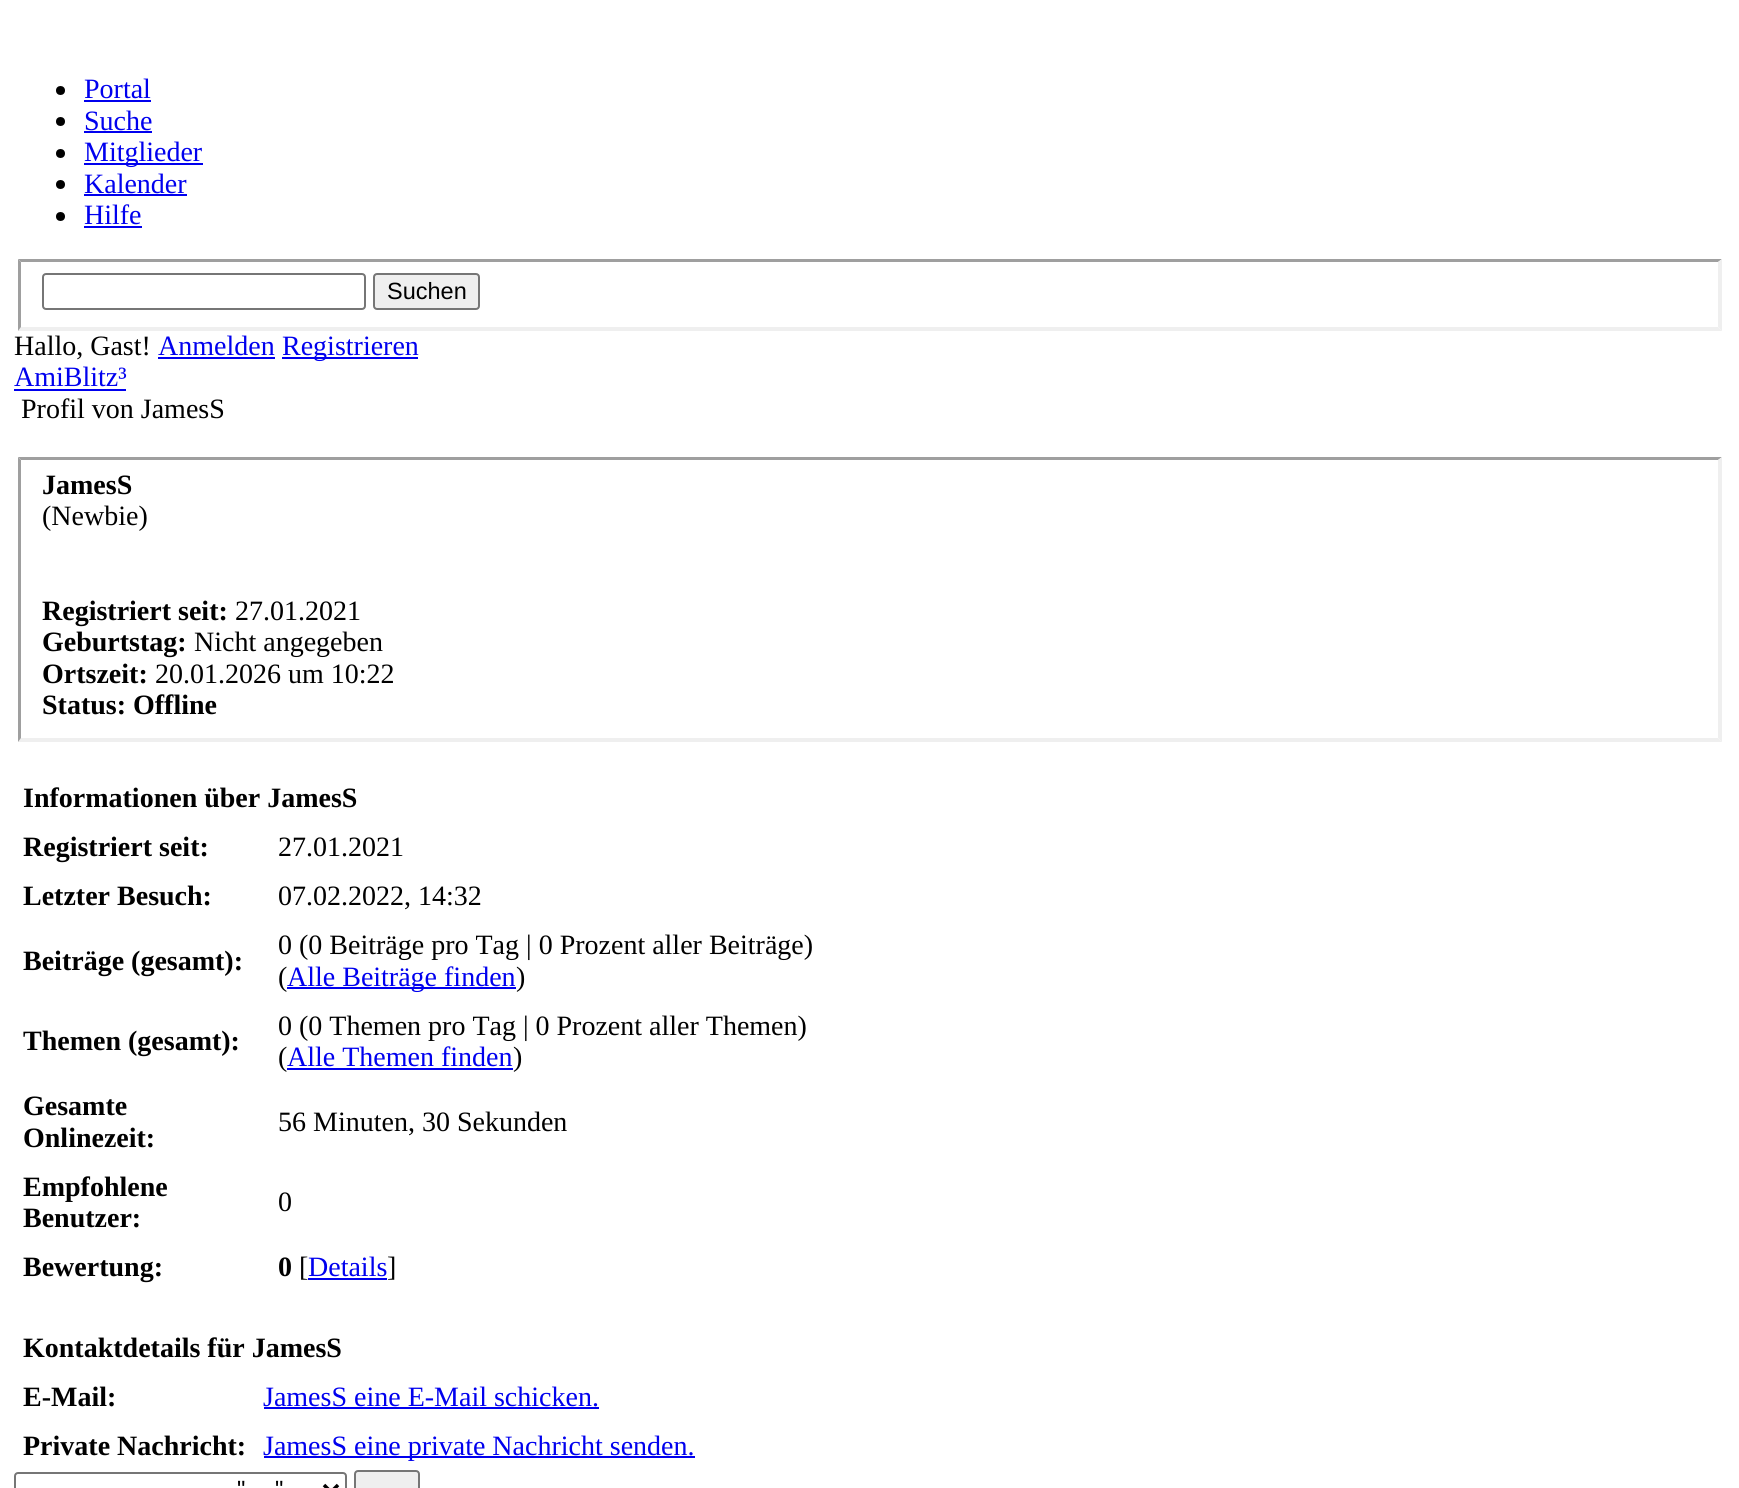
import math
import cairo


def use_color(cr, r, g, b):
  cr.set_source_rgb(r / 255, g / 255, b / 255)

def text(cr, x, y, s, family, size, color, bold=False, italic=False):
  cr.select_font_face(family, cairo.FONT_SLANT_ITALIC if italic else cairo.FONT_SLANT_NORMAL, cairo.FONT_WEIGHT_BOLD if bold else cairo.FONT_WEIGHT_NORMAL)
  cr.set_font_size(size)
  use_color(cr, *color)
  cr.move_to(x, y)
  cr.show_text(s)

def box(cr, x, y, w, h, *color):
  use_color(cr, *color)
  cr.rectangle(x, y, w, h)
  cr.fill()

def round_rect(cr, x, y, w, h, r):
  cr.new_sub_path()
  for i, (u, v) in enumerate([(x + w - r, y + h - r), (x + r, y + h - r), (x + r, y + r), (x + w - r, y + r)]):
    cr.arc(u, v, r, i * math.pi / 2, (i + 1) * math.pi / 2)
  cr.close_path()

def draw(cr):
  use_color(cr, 255, 255, 255)
  cr.paint()
  use_color(cr, 0, 0, 0)
  cr.arc(60.5, 90.5, 4.5, 0, 2 * math.pi)
  cr.fill()
  box(cr, 84, 100, 67, 2, 0, 0, 238)
  use_color(cr, 0, 0, 0)
  cr.arc(60.5, 121.5, 4.5, 0, 2 * math.pi)
  cr.fill()
  box(cr, 84, 131, 68, 2, 0, 0, 238)
  use_color(cr, 0, 0, 0)
  cr.arc(60.5, 153.5, 4.5, 0, 2 * math.pi)
  cr.fill()
  box(cr, 84, 163, 119, 2, 0, 0, 238)
  use_color(cr, 0, 0, 0)
  cr.arc(60.5, 184.5, 4.5, 0, 2 * math.pi)
  cr.fill()
  box(cr, 84, 194, 103, 2, 0, 0, 238)
  use_color(cr, 0, 0, 0)
  cr.arc(60.5, 216.5, 4.5, 0, 2 * math.pi)
  cr.fill()
  box(cr, 84, 226, 58, 2, 0, 0, 238)
  use_color(cr, 159, 159, 159)
  cr.new_path()
  cr.move_to(18, 259)
  cr.line_to(1722, 259)
  cr.line_to(1718, 262)
  cr.line_to(21, 262)
  cr.close_path()
  cr.fill()
  use_color(cr, 239, 239, 239)
  cr.new_path()
  cr.move_to(1722, 259)
  cr.line_to(1722, 331)
  cr.line_to(1718, 327)
  cr.line_to(1718, 262)
  cr.close_path()
  cr.fill()
  cr.new_path()
  cr.move_to(1722, 331)
  cr.line_to(18, 331)
  cr.line_to(21, 327)
  cr.line_to(1718, 327)
  cr.close_path()
  cr.fill()
  use_color(cr, 159, 159, 159)
  cr.new_path()
  cr.move_to(18, 331)
  cr.line_to(18, 259)
  cr.line_to(21, 262)
  cr.line_to(21, 327)
  cr.close_path()
  cr.fill()
  round_rect(cr, 43, 274, 322, 35, 3)
  use_color(cr, 118, 118, 118)
  cr.stroke()
  use_color(cr, 239, 239, 239)
  round_rect(cr, 374, 274, 105, 35, 3)
  cr.fill_preserve()
  use_color(cr, 118, 118, 118)
  cr.stroke()
  box(cr, 158, 357, 117, 2, 0, 0, 238)
  box(cr, 282, 357, 136, 2, 0, 0, 238)
  box(cr, 14, 389, 112, 2, 0, 0, 238)
  use_color(cr, 159, 159, 159)
  cr.new_path()
  cr.move_to(18, 457)
  cr.line_to(1722, 457)
  cr.line_to(1718, 460)
  cr.line_to(21, 460)
  cr.close_path()
  cr.fill()
  use_color(cr, 239, 239, 239)
  cr.new_path()
  cr.move_to(1722, 457)
  cr.line_to(1722, 742)
  cr.line_to(1718, 738)
  cr.line_to(1718, 460)
  cr.close_path()
  cr.fill()
  cr.new_path()
  cr.move_to(1722, 742)
  cr.line_to(18, 742)
  cr.line_to(21, 738)
  cr.line_to(1718, 738)
  cr.close_path()
  cr.fill()
  use_color(cr, 159, 159, 159)
  cr.new_path()
  cr.move_to(18, 742)
  cr.line_to(18, 457)
  cr.line_to(21, 460)
  cr.line_to(21, 738)
  cr.close_path()
  cr.fill()
  box(cr, 287, 987, 229, 2, 0, 0, 238)
  box(cr, 287, 1068, 226, 2, 0, 0, 238)
  box(cr, 308, 1278, 79, 2, 0, 0, 238)
  box(cr, 264, 1407, 335, 2, 0, 0, 238)
  box(cr, 264, 1456, 431, 2, 0, 0, 238)
  round_rect(cr, 15, 1473, 331, 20, 3)
  use_color(cr, 118, 118, 118)
  cr.stroke()
  cr.new_path()
  cr.move_to(324, 1485)
  cr.line_to(331, 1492)
  cr.line_to(338, 1485)
  use_color(cr, 0, 0, 0)
  cr.set_line_width(3.5)
  cr.stroke()
  use_color(cr, 239, 239, 239)
  round_rect(cr, 355, 1471, 64, 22, 3)
  cr.fill_preserve()
  use_color(cr, 118, 118, 118)
  cr.set_line_width(2)
  cr.stroke()
  text(cr, 84, 98, "Portal", "Liberation Serif", 28, (0, 0, 238))
  text(cr, 84, 130, "Suche", "Liberation Serif", 28, (0, 0, 238))
  text(cr, 84, 161, "Mitglieder", "Liberation Serif", 28, (0, 0, 238))
  text(cr, 84, 193, "Kalender", "Liberation Serif", 28, (0, 0, 238))
  text(cr, 84, 224, "Hilfe", "Liberation Serif", 28, (0, 0, 238))
  text(cr, 387, 299, "Suchen", "Liberation Sans", 23.5, (0, 0, 0))
  text(cr, 14, 355, "Hallo, Gast!", "Liberation Serif", 28, (0, 0, 0))
  text(cr, 158, 355, "Anmelden", "Liberation Serif", 28, (0, 0, 238))
  text(cr, 282, 355, "Registrieren", "Liberation Serif", 28, (0, 0, 238))
  text(cr, 14, 386, "AmiBlitz³", "Liberation Serif", 28, (0, 0, 238))
  text(cr, 21, 418, "Profil von JamesS", "Liberation Serif", 28, (0, 0, 0))
  text(cr, 42, 494, "JamesS", "Liberation Serif", 28, (0, 0, 0), bold=True)
  text(cr, 42, 525, "(Newbie)", "Liberation Serif", 28, (0, 0, 0))
  text(cr, 42, 620, "Registriert seit:", "Liberation Serif", 28, (0, 0, 0), bold=True)
  text(cr, 235, 620, "27.01.2021", "Liberation Serif", 28, (0, 0, 0))
  text(cr, 42, 651, "Geburtstag:", "Liberation Serif", 28, (0, 0, 0), bold=True)
  text(cr, 194, 651, "Nicht angegeben", "Liberation Serif", 28, (0, 0, 0))
  text(cr, 42, 683, "Ortszeit:", "Liberation Serif", 28, (0, 0, 0), bold=True)
  text(cr, 155, 683, "20.01.2026 um 10:22", "Liberation Serif", 28, (0, 0, 0))
  text(cr, 42, 714, "Status: Offline", "Liberation Serif", 28, (0, 0, 0), bold=True)
  text(cr, 23, 807, "Informationen über JamesS", "Liberation Serif", 28, (0, 0, 0), bold=True)
  text(cr, 23, 856, "Registriert seit:", "Liberation Serif", 28, (0, 0, 0), bold=True)
  text(cr, 278, 856, "27.01.2021", "Liberation Serif", 28, (0, 0, 0))
  text(cr, 23, 905, "Letzter Besuch:", "Liberation Serif", 28, (0, 0, 0), bold=True)
  text(cr, 278, 905, "07.02.2022, 14:32", "Liberation Serif", 28, (0, 0, 0))
  text(cr, 23, 970, "Beiträge (gesamt):", "Liberation Serif", 28, (0, 0, 0), bold=True)
  text(cr, 278, 954, "0 (0 Beiträge pro Tag | 0 Prozent aller Beiträge)", "Liberation Serif", 28, (0, 0, 0))
  text(cr, 278, 986, "(", "Liberation Serif", 28, (0, 0, 0))
  text(cr, 287, 986, "Alle Beiträge finden", "Liberation Serif", 28, (0, 0, 238))
  text(cr, 516, 986, ")", "Liberation Serif", 28, (0, 0, 0))
  text(cr, 23, 1050, "Themen (gesamt):", "Liberation Serif", 28, (0, 0, 0), bold=True)
  text(cr, 278, 1035, "0 (0 Themen pro Tag | 0 Prozent aller Themen)", "Liberation Serif", 28, (0, 0, 0))
  text(cr, 278, 1066, "(", "Liberation Serif", 28, (0, 0, 0))
  text(cr, 287, 1066, "Alle Themen finden", "Liberation Serif", 28, (0, 0, 238))
  text(cr, 513, 1066, ")", "Liberation Serif", 28, (0, 0, 0))
  text(cr, 23, 1115, "Gesamte", "Liberation Serif", 28, (0, 0, 0), bold=True)
  text(cr, 23, 1147, "Onlinezeit:", "Liberation Serif", 28, (0, 0, 0), bold=True)
  text(cr, 278, 1131, "56 Minuten, 30 Sekunden", "Liberation Serif", 28, (0, 0, 0))
  text(cr, 23, 1196, "Empfohlene", "Liberation Serif", 28, (0, 0, 0), bold=True)
  text(cr, 23, 1227, "Benutzer:", "Liberation Serif", 28, (0, 0, 0), bold=True)
  text(cr, 278, 1211, "0", "Liberation Serif", 28, (0, 0, 0))
  text(cr, 23, 1276, "Bewertung:", "Liberation Serif", 28, (0, 0, 0), bold=True)
  text(cr, 278, 1276, "0", "Liberation Serif", 28, (0, 0, 0), bold=True)
  text(cr, 299, 1276, "[", "Liberation Serif", 28, (0, 0, 0))
  text(cr, 308, 1276, "Details", "Liberation Serif", 28, (0, 0, 238))
  text(cr, 387, 1276, "]", "Liberation Serif", 28, (0, 0, 0))
  text(cr, 23, 1357, "Kontaktdetails für JamesS", "Liberation Serif", 28, (0, 0, 0), bold=True)
  text(cr, 23, 1406, "E-Mail:", "Liberation Serif", 28, (0, 0, 0), bold=True)
  text(cr, 263, 1406, "JamesS eine E-Mail schicken.", "Liberation Serif", 28, (0, 0, 238))
  text(cr, 23, 1455, "Private Nachricht:", "Liberation Serif", 28, (0, 0, 0), bold=True)
  text(cr, 263, 1455, "JamesS eine private Nachricht senden.", "Liberation Serif", 28, (0, 0, 238))
  text(cr, 237, 1497, "\"", "Liberation Sans", 23.5, (0, 0, 0))
  text(cr, 275, 1497, "\"", "Liberation Sans", 23.5, (0, 0, 0))


surface = cairo.ImageSurface(cairo.FORMAT_RGB24, 1739, 1488)
cr = cairo.Context(surface)
options = cairo.FontOptions()
options.set_hint_metrics(cairo.HINT_METRICS_OFF)
options.set_hint_style(cairo.HINT_STYLE_NONE)
cr.set_font_options(options)
cr.set_miter_limit(4)
draw(cr)
surface.write_to_png("out.png")
